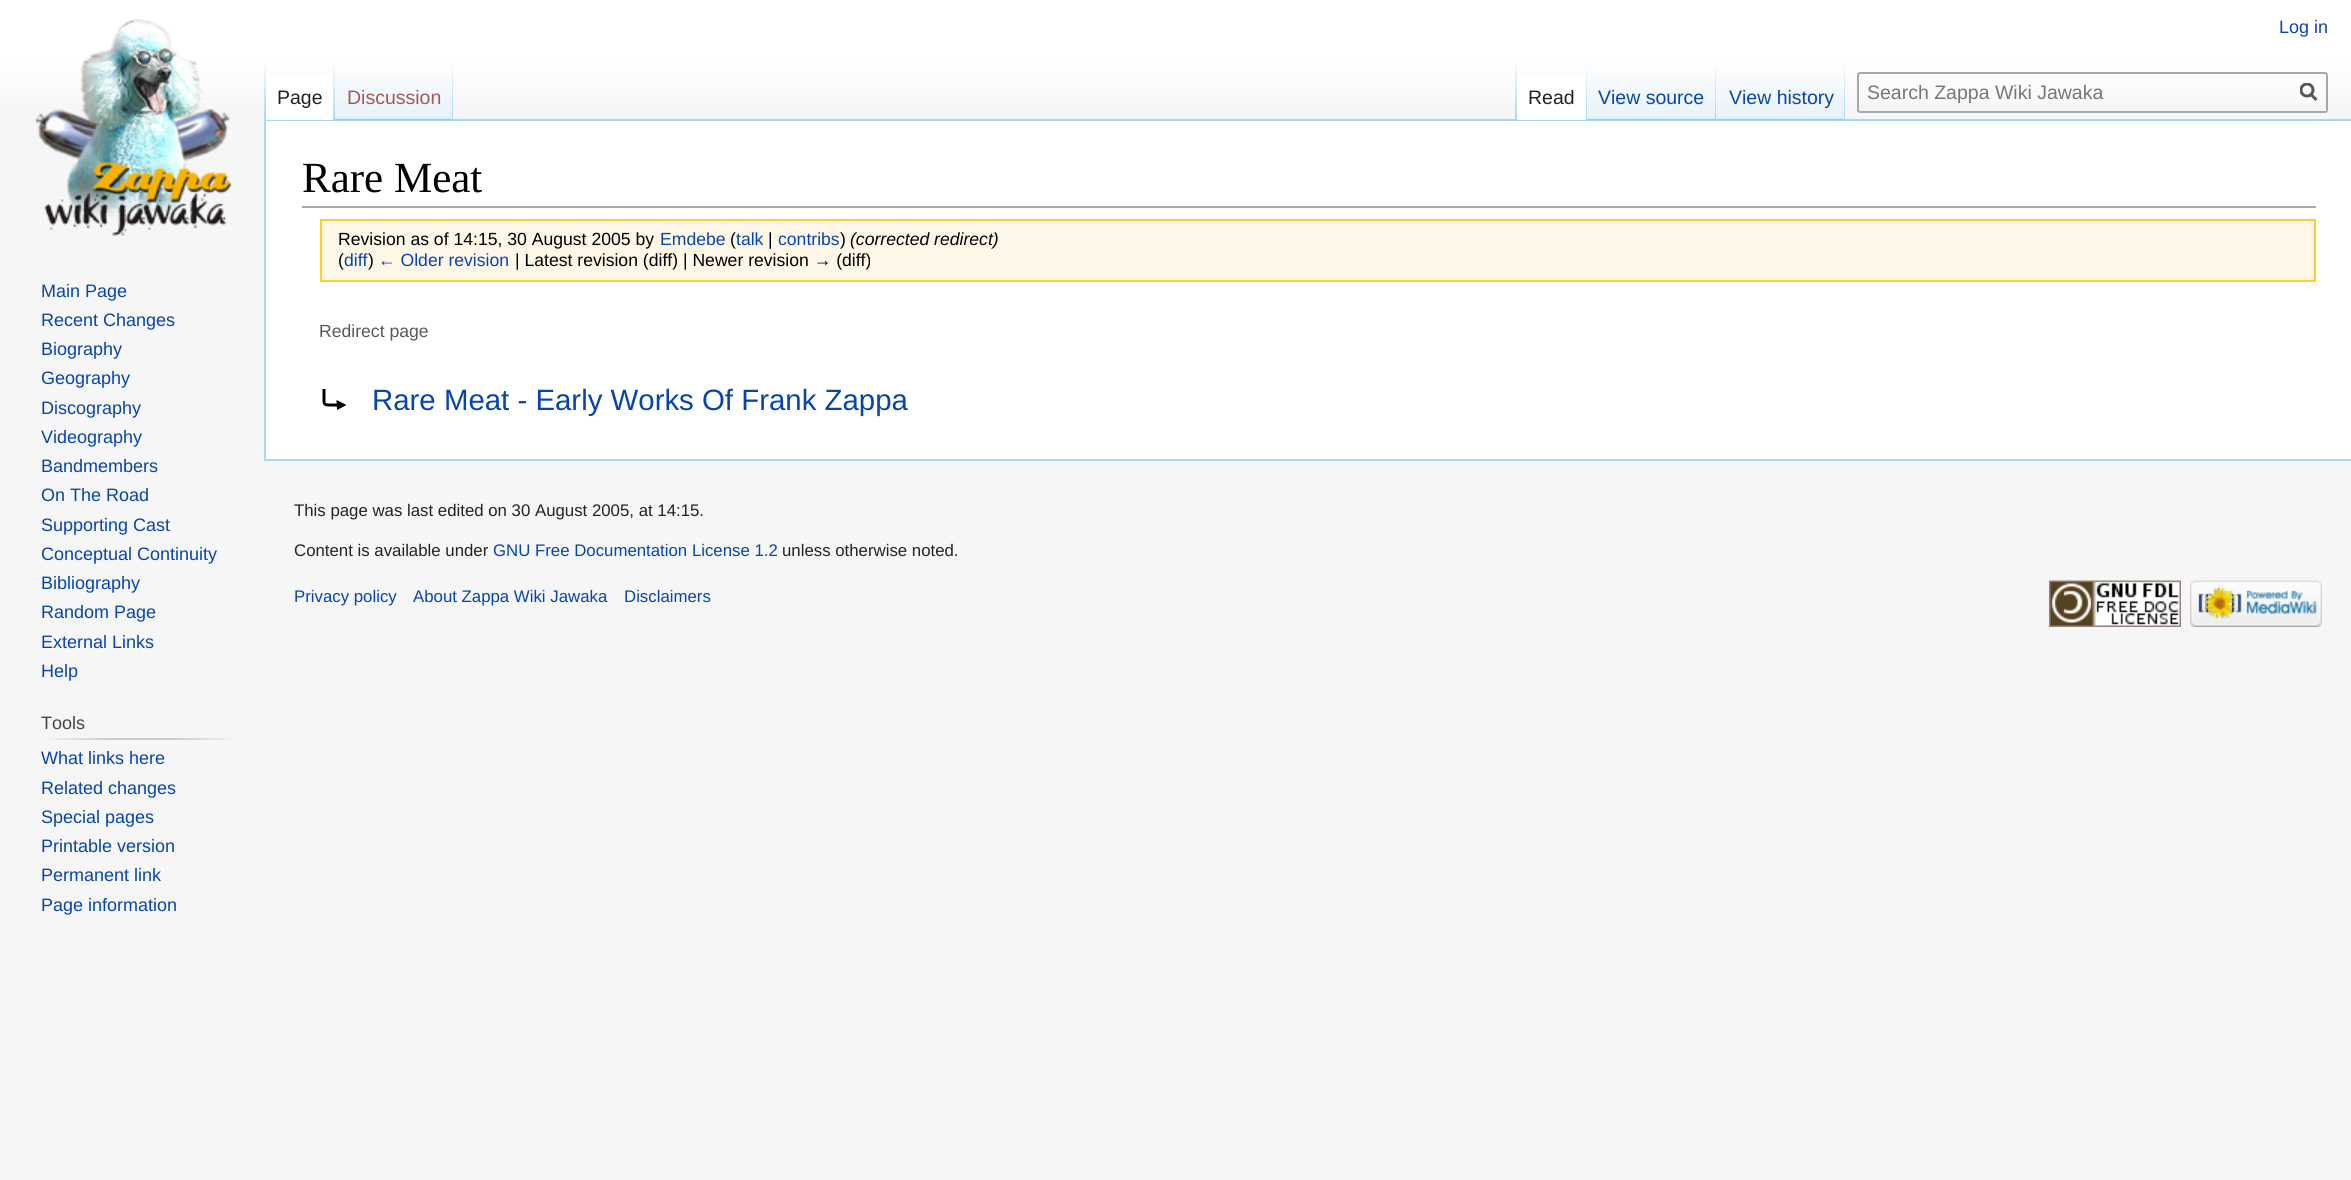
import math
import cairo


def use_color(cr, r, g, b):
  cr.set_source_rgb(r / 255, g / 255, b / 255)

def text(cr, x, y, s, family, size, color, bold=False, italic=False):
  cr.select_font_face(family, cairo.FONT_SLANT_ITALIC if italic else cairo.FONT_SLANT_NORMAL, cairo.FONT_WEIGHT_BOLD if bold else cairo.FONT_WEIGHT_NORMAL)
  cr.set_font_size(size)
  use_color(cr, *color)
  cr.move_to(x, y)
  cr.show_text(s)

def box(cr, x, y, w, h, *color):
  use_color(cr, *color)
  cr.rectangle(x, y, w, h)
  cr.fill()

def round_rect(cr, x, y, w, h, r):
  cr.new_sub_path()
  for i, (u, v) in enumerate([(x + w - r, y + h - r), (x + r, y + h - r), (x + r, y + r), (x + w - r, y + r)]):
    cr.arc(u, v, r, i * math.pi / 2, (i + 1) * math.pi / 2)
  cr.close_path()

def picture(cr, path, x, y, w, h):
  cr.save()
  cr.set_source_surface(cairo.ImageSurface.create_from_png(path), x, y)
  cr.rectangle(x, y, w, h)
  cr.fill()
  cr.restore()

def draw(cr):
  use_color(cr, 246, 246, 246)
  cr.paint()
  gradient = cairo.LinearGradient(1176, 0, 1176, 120)
  gradient.add_color_stop_rgba(0.5, 1, 1, 1, 1)
  gradient.add_color_stop_rgba(1, 0.965, 0.965, 0.965, 1)
  cr.set_source(gradient)
  cr.rectangle(0, 0, 2351, 103)
  cr.fill()
  box(cr, 264, 119, 2087, 2, 167, 215, 249)
  box(cr, 264, 459, 2087, 2, 167, 215, 249)
  box(cr, 264, 119, 2, 342, 167, 215, 249)
  gradient = cairo.LinearGradient(265, 60, 265, 120)
  gradient.add_color_stop_rgba(0, 0.655, 0.843, 0.976, 0)
  gradient.add_color_stop_rgba(1, 0.655, 0.843, 0.976, 1)
  cr.set_source(gradient)
  cr.rectangle(264, 60, 2, 60)
  cr.fill()
  box(cr, 266, 77, 67, 43, 255, 255, 255)
  gradient = cairo.LinearGradient(334, 60, 334, 120)
  gradient.add_color_stop_rgba(0, 1, 1, 1, 1)
  gradient.add_color_stop_rgba(1, 0.655, 0.843, 0.976, 1)
  cr.set_source(gradient)
  cr.rectangle(333, 60, 2, 60)
  cr.fill()
  gradient = cairo.LinearGradient(394, 120, 394, 60)
  gradient.add_color_stop_rgba(0, 0.467, 0.757, 0.965, 1)
  gradient.add_color_stop_rgba(0.03, 0.91, 0.949, 0.973, 1)
  gradient.add_color_stop_rgba(1, 1, 1, 1, 1)
  cr.set_source(gradient)
  cr.rectangle(335, 69, 118, 51)
  cr.fill()
  gradient = cairo.LinearGradient(452, 60, 452, 120)
  gradient.add_color_stop_rgba(0, 0.655, 0.843, 0.976, 0)
  gradient.add_color_stop_rgba(1, 0.655, 0.843, 0.976, 1)
  cr.set_source(gradient)
  cr.rectangle(452, 60, 1, 60)
  cr.fill()
  gradient = cairo.LinearGradient(1516, 60, 1516, 120)
  gradient.add_color_stop_rgba(0, 0.655, 0.843, 0.976, 0)
  gradient.add_color_stop_rgba(1, 0.655, 0.843, 0.976, 1)
  cr.set_source(gradient)
  cr.rectangle(1515, 60, 2, 60)
  cr.fill()
  box(cr, 1517, 77, 69, 43, 255, 255, 255)
  gradient = cairo.LinearGradient(1586, 60, 1586, 120)
  gradient.add_color_stop_rgba(0, 1, 1, 1, 1)
  gradient.add_color_stop_rgba(1, 0.655, 0.843, 0.976, 1)
  cr.set_source(gradient)
  cr.rectangle(1586, 60, 1, 60)
  cr.fill()
  gradient = cairo.LinearGradient(1652, 120, 1652, 60)
  gradient.add_color_stop_rgba(0, 0.467, 0.757, 0.965, 1)
  gradient.add_color_stop_rgba(0.03, 0.91, 0.949, 0.973, 1)
  gradient.add_color_stop_rgba(1, 1, 1, 1, 1)
  cr.set_source(gradient)
  cr.rectangle(1587, 69, 129, 51)
  cr.fill()
  gradient = cairo.LinearGradient(1715, 60, 1715, 120)
  gradient.add_color_stop_rgba(0, 0.655, 0.843, 0.976, 0)
  gradient.add_color_stop_rgba(1, 0.655, 0.843, 0.976, 1)
  cr.set_source(gradient)
  cr.rectangle(1715, 60, 1, 60)
  cr.fill()
  gradient = cairo.LinearGradient(1781, 120, 1781, 60)
  gradient.add_color_stop_rgba(0, 0.467, 0.757, 0.965, 1)
  gradient.add_color_stop_rgba(0.03, 0.91, 0.949, 0.973, 1)
  gradient.add_color_stop_rgba(1, 1, 1, 1, 1)
  cr.set_source(gradient)
  cr.rectangle(1716, 69, 129, 51)
  cr.fill()
  gradient = cairo.LinearGradient(1844, 60, 1844, 120)
  gradient.add_color_stop_rgba(0, 0.655, 0.843, 0.976, 0)
  gradient.add_color_stop_rgba(1, 0.655, 0.843, 0.976, 1)
  cr.set_source(gradient)
  cr.rectangle(1844, 60, 1, 60)
  cr.fill()
  round_rect(cr, 1858, 73, 469, 39, 2)
  use_color(cr, 162, 169, 177)
  cr.stroke()
  cr.new_path()
  cr.move_to(2316.5, 100)
  cr.line_to(2310.5, 94)
  use_color(cr, 84, 89, 93)
  cr.set_line_width(3)
  cr.stroke()
  cr.save()
  cr.rectangle(2300, 83, 18, 19)
  cr.clip()
  cr.arc(2307, 90, 6, 0, 2 * math.pi)
  cr.stroke()
  cr.restore()
  picture(cr, "img_01.png", 35, 19, 197, 217)
  gradient = cairo.LinearGradient(41, 739, 237, 739)
  gradient.add_color_stop_rgba(0, 0.965, 0.965, 0.965, 1)
  gradient.add_color_stop_rgba(0.35, 0.784, 0.8, 0.82, 1)
  gradient.add_color_stop_rgba(0.7, 0.784, 0.8, 0.82, 1)
  gradient.add_color_stop_rgba(1, 0.965, 0.965, 0.965, 1)
  cr.set_source(gradient)
  cr.rectangle(41, 738, 196, 2)
  cr.fill()
  box(cr, 266, 121, 2085, 338, 255, 255, 255)
  box(cr, 302, 206, 2014, 2, 162, 169, 177)
  use_color(cr, 254, 246, 231)
  cr.rectangle(321, 220, 1994, 61)
  cr.fill_preserve()
  use_color(cr, 255, 204, 51)
  cr.set_line_width(2)
  cr.stroke()
  cr.new_path()
  cr.move_to(324, 389)
  cr.line_to(324, 398)
  cr.curve_to(324, 404, 323.5, 405, 330, 405)
  cr.line_to(340.5, 405)
  use_color(cr, 0, 0, 0)
  cr.set_line_width(3)
  cr.stroke()
  cr.new_path()
  cr.move_to(336.5, 400)
  cr.line_to(337, 410)
  cr.line_to(346.5, 405)
  cr.close_path()
  cr.fill()
  picture(cr, "img_02.png", 2049, 580, 132, 47)
  picture(cr, "img_03.png", 2190, 580, 132, 47)
  text(cr, 2279, 33, "Log in", "Liberation Sans", 18, (6, 69, 173))
  text(cr, 277, 104, "Page", "Liberation Sans", 19.5, (34, 34, 34))
  text(cr, 347, 104, "Discussion", "Liberation Sans", 19.5, (165, 88, 88))
  text(cr, 1528, 104, "Read", "Liberation Sans", 19.5, (34, 34, 34))
  text(cr, 1598, 104, "View source", "Liberation Sans", 19.5, (6, 69, 173))
  text(cr, 1729, 104, "View history", "Liberation Sans", 19.5, (6, 69, 173))
  text(cr, 1867, 99, "Search Zappa Wiki Jawaka", "Liberation Sans", 19.5, (114, 119, 125))
  text(cr, 41, 297, "Main Page", "Liberation Sans", 18, (6, 69, 173))
  text(cr, 41, 326, "Recent Changes", "Liberation Sans", 18, (6, 69, 173))
  text(cr, 41, 355, "Biography", "Liberation Sans", 18, (6, 69, 173))
  text(cr, 41, 384, "Geography", "Liberation Sans", 18, (6, 69, 173))
  text(cr, 41, 414, "Discography", "Liberation Sans", 18, (6, 69, 173))
  text(cr, 41, 443, "Videography", "Liberation Sans", 18, (6, 69, 173))
  text(cr, 41, 472, "Bandmembers", "Liberation Sans", 18, (6, 69, 173))
  text(cr, 41, 501, "On The Road", "Liberation Sans", 18, (6, 69, 173))
  text(cr, 41, 531, "Supporting Cast", "Liberation Sans", 18, (6, 69, 173))
  text(cr, 41, 560, "Conceptual Continuity", "Liberation Sans", 18, (6, 69, 173))
  text(cr, 41, 589, "Bibliography", "Liberation Sans", 18, (6, 69, 173))
  text(cr, 41, 618, "Random Page", "Liberation Sans", 18, (6, 69, 173))
  text(cr, 41, 648, "External Links", "Liberation Sans", 18, (6, 69, 173))
  text(cr, 41, 677, "Help", "Liberation Sans", 18, (6, 69, 173))
  text(cr, 41, 729, "Tools", "Liberation Sans", 18, (68, 68, 68))
  text(cr, 41, 764, "What links here", "Liberation Sans", 18, (6, 69, 173))
  text(cr, 41, 794, "Related changes", "Liberation Sans", 18, (6, 69, 173))
  text(cr, 41, 823, "Special pages", "Liberation Sans", 18, (6, 69, 173))
  text(cr, 41, 852, "Printable version", "Liberation Sans", 18, (6, 69, 173))
  text(cr, 41, 881, "Permanent link", "Liberation Sans", 18, (6, 69, 173))
  text(cr, 41, 911, "Page information", "Liberation Sans", 18, (6, 69, 173))
  text(cr, 302, 192, "Rare Meat", "Liberation Serif", 43, (0, 0, 0))
  text(cr, 338, 245, "Revision as of 14:15, 30 August 2005 by", "Liberation Sans", 17.6, (0, 0, 0))
  text(cr, 660, 245, "Emdebe", "Liberation Sans", 17.6, (6, 69, 173))
  text(cr, 730, 245, "(", "Liberation Sans", 17.6, (0, 0, 0))
  text(cr, 736, 245, "talk", "Liberation Sans", 17.6, (6, 69, 173))
  text(cr, 768, 245, "|", "Liberation Sans", 17.6, (0, 0, 0))
  text(cr, 778, 245, "contribs", "Liberation Sans", 17.6, (6, 69, 173))
  text(cr, 840, 245, ")", "Liberation Sans", 17.6, (0, 0, 0))
  text(cr, 850, 245, "(corrected redirect)", "Liberation Sans", 17.6, (0, 0, 0), italic=True)
  text(cr, 338, 266, "(", "Liberation Sans", 17.6, (0, 0, 0))
  text(cr, 344, 266, "diff", "Liberation Sans", 17.6, (6, 69, 173))
  text(cr, 368, 266, ")", "Liberation Sans", 17.6, (0, 0, 0))
  text(cr, 378, 266, "← Older revision", "Liberation Sans", 17.6, (6, 69, 173))
  text(cr, 515, 266, "| Latest revision (diff) | Newer revision → (diff)", "Liberation Sans", 17.6, (0, 0, 0))
  text(cr, 319, 337, "Redirect page", "Liberation Sans", 17.6, (84, 89, 93))
  text(cr, 372, 410, "Rare Meat - Early Works Of Frank Zappa", "Liberation Sans", 29.4, (6, 69, 173))
  text(cr, 294, 516, "This page was last edited on 30 August 2005, at 14:15.", "Liberation Sans", 16.8, (34, 34, 34))
  text(cr, 294, 556, "Content is available under", "Liberation Sans", 16.8, (34, 34, 34))
  text(cr, 493, 556, "GNU Free Documentation License 1.2", "Liberation Sans", 16.8, (6, 69, 173))
  text(cr, 782, 556, "unless otherwise noted.", "Liberation Sans", 16.8, (34, 34, 34))
  text(cr, 294, 602, "Privacy policy", "Liberation Sans", 16.8, (6, 69, 173))
  text(cr, 413, 602, "About Zappa Wiki Jawaka", "Liberation Sans", 16.8, (6, 69, 173))
  text(cr, 624, 602, "Disclaimers", "Liberation Sans", 16.8, (6, 69, 173))


surface = cairo.ImageSurface(cairo.FORMAT_RGB24, 2351, 1180)
cr = cairo.Context(surface)
options = cairo.FontOptions()
options.set_hint_metrics(cairo.HINT_METRICS_OFF)
options.set_hint_style(cairo.HINT_STYLE_NONE)
cr.set_font_options(options)
cr.set_miter_limit(4)
draw(cr)
surface.write_to_png("out.png")
